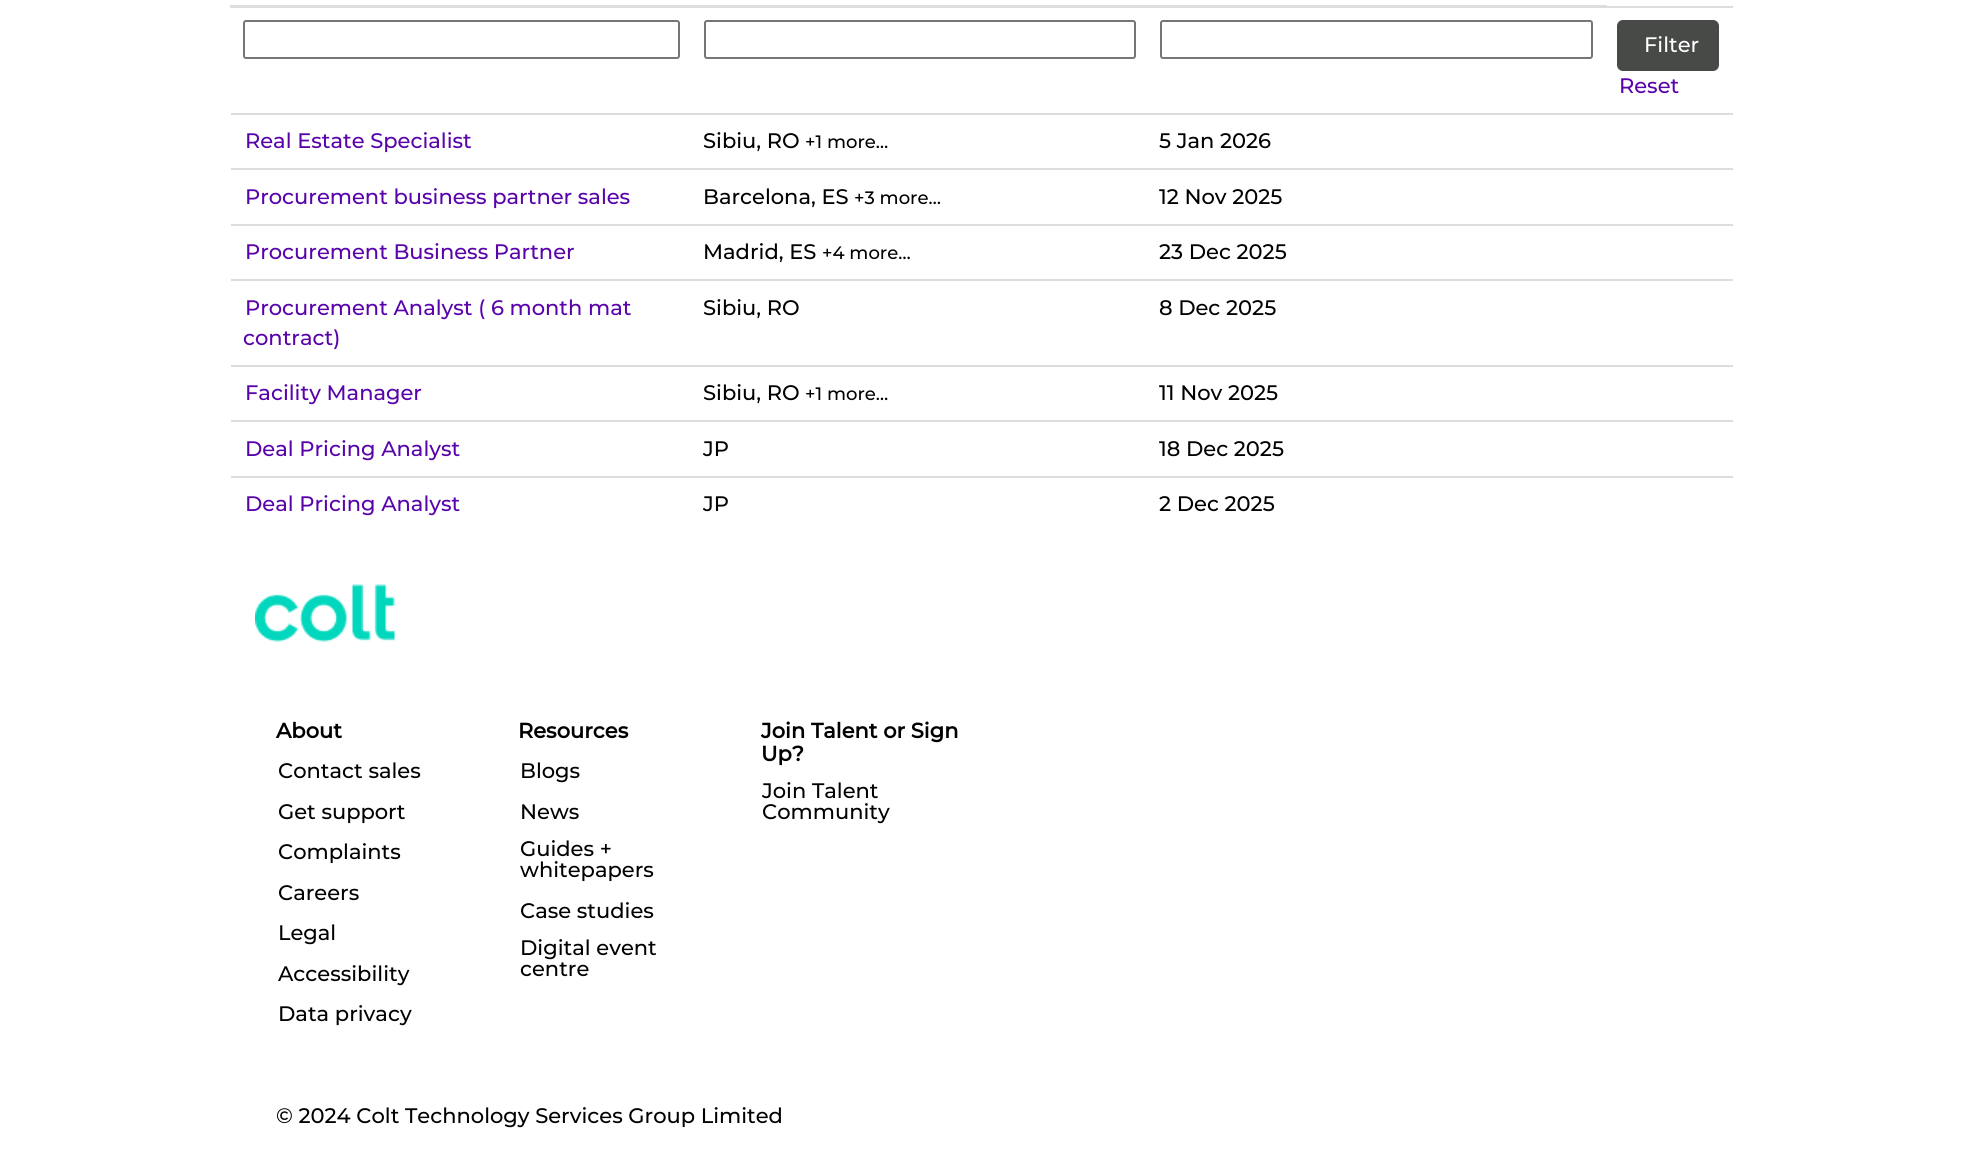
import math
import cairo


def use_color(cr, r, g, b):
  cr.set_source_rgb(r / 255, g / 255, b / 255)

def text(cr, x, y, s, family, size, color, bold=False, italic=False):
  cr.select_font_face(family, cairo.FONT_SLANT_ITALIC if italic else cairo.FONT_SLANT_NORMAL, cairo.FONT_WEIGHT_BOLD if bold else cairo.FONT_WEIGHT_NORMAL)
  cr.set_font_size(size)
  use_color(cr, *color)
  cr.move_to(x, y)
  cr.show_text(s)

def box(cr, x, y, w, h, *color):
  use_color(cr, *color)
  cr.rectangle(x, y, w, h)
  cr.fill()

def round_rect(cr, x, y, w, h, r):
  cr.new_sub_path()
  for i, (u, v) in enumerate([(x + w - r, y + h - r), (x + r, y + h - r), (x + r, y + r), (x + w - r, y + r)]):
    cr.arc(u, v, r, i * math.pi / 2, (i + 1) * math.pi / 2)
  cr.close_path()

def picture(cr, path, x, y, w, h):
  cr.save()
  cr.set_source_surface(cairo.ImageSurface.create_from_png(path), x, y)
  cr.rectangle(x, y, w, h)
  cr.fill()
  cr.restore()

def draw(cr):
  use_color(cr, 255, 255, 255)
  cr.paint()
  box(cr, 1605, 6, 128, 2, 221, 221, 221)
  box(cr, 230, 5, 1377, 3, 221, 221, 221)
  round_rect(cr, 244, 21, 435, 37, 2)
  use_color(cr, 118, 118, 118)
  cr.stroke()
  round_rect(cr, 705, 21, 430, 37, 2)
  cr.stroke()
  round_rect(cr, 1161, 21, 431, 37, 2)
  cr.stroke()
  use_color(cr, 72, 74, 71)
  round_rect(cr, 1617, 20, 102, 51, 6)
  cr.fill()
  box(cr, 231, 113, 1502, 2, 221, 221, 221)
  box(cr, 231, 168, 1502, 2, 221, 221, 221)
  box(cr, 231, 224, 1502, 2, 221, 221, 221)
  box(cr, 231, 279, 1502, 2, 221, 221, 221)
  box(cr, 231, 365, 1502, 2, 221, 221, 221)
  box(cr, 231, 420, 1502, 2, 221, 221, 221)
  box(cr, 231, 476, 1502, 2, 221, 221, 221)
  picture(cr, "img_01.png", 255, 584, 140, 58)
  text(cr, 1644, 52, "Filter", "Montserrat Medium", 21, (255, 255, 255))
  text(cr, 1619, 93, "Reset", "Montserrat Medium", 21, (89, 3, 170))
  text(cr, 245, 148, "Real Estate Specialist", "Montserrat Medium", 21, (89, 3, 170))
  text(cr, 703, 148, "Sibiu, RO", "Montserrat Medium", 21, (0, 0, 0))
  text(cr, 805, 148, "+1 more…", "Montserrat Medium", 18, (0, 0, 0))
  text(cr, 1159, 148, "5 Jan 2026", "Montserrat Medium", 21, (0, 0, 0))
  text(cr, 245, 204, "Procurement business partner sales", "Montserrat Medium", 21, (89, 3, 170))
  text(cr, 703, 204, "Barcelona, ES", "Montserrat Medium", 21, (0, 0, 0))
  text(cr, 854, 204, "+3 more…", "Montserrat Medium", 18, (0, 0, 0))
  text(cr, 1159, 204, "12 Nov 2025", "Montserrat Medium", 21, (0, 0, 0))
  text(cr, 245, 259, "Procurement Business Partner", "Montserrat Medium", 21, (89, 3, 170))
  text(cr, 703, 259, "Madrid, ES", "Montserrat Medium", 21, (0, 0, 0))
  text(cr, 822, 259, "+4 more…", "Montserrat Medium", 18, (0, 0, 0))
  text(cr, 1159, 259, "23 Dec 2025", "Montserrat Medium", 21, (0, 0, 0))
  text(cr, 245, 315, "Procurement Analyst ( 6 month mat", "Montserrat Medium", 21, (89, 3, 170))
  text(cr, 243, 345, "contract)", "Montserrat Medium", 21, (89, 3, 170))
  text(cr, 703, 315, "Sibiu, RO", "Montserrat Medium", 21, (0, 0, 0))
  text(cr, 1159, 315, "8 Dec 2025", "Montserrat Medium", 21, (0, 0, 0))
  text(cr, 245, 400, "Facility Manager", "Montserrat Medium", 21, (89, 3, 170))
  text(cr, 703, 400, "Sibiu, RO", "Montserrat Medium", 21, (0, 0, 0))
  text(cr, 805, 400, "+1 more…", "Montserrat Medium", 18, (0, 0, 0))
  text(cr, 1159, 400, "11 Nov 2025", "Montserrat Medium", 21, (0, 0, 0))
  text(cr, 245, 456, "Deal Pricing Analyst", "Montserrat Medium", 21, (89, 3, 170))
  text(cr, 703, 456, "JP", "Montserrat Medium", 21, (0, 0, 0))
  text(cr, 1159, 456, "18 Dec 2025", "Montserrat Medium", 21, (0, 0, 0))
  text(cr, 245, 511, "Deal Pricing Analyst", "Montserrat Medium", 21, (89, 3, 170))
  text(cr, 703, 511, "JP", "Montserrat Medium", 21, (0, 0, 0))
  text(cr, 1159, 511, "2 Dec 2025", "Montserrat Medium", 21, (0, 0, 0))
  text(cr, 276, 738, "About", "Montserrat", 21, (0, 0, 0), bold=True)
  text(cr, 278, 778, "Contact sales", "Montserrat Medium", 21, (0, 0, 0))
  text(cr, 278, 819, "Get support", "Montserrat Medium", 21, (0, 0, 0))
  text(cr, 278, 859, "Complaints", "Montserrat Medium", 21, (0, 0, 0))
  text(cr, 278, 900, "Careers", "Montserrat Medium", 21, (0, 0, 0))
  text(cr, 278, 940, "Legal", "Montserrat Medium", 21, (0, 0, 0))
  text(cr, 278, 981, "Accessibility", "Montserrat Medium", 21, (0, 0, 0))
  text(cr, 278, 1021, "Data privacy", "Montserrat Medium", 21, (0, 0, 0))
  text(cr, 518, 738, "Resources", "Montserrat", 21, (0, 0, 0), bold=True)
  text(cr, 520, 778, "Blogs", "Montserrat Medium", 21, (0, 0, 0))
  text(cr, 520, 819, "News", "Montserrat Medium", 21, (0, 0, 0))
  text(cr, 520, 856, "Guides +", "Montserrat Medium", 21, (0, 0, 0))
  text(cr, 520, 877, "whitepapers", "Montserrat Medium", 21, (0, 0, 0))
  text(cr, 520, 918, "Case studies", "Montserrat Medium", 21, (0, 0, 0))
  text(cr, 520, 955, "Digital event", "Montserrat Medium", 21, (0, 0, 0))
  text(cr, 520, 976, "centre", "Montserrat Medium", 21, (0, 0, 0))
  text(cr, 761, 738, "Join Talent or Sign", "Montserrat", 21, (0, 0, 0), bold=True)
  text(cr, 761, 761, "Up?", "Montserrat", 21, (0, 0, 0), bold=True)
  text(cr, 762, 798, "Join Talent", "Montserrat Medium", 21, (0, 0, 0))
  text(cr, 762, 819, "Community", "Montserrat Medium", 21, (0, 0, 0))
  text(cr, 276, 1123, "© 2024 Colt Technology Services Group Limited", "Montserrat Medium", 21, (0, 0, 0))


surface = cairo.ImageSurface(cairo.FORMAT_RGB24, 1961, 1149)
cr = cairo.Context(surface)
options = cairo.FontOptions()
options.set_hint_metrics(cairo.HINT_METRICS_OFF)
options.set_hint_style(cairo.HINT_STYLE_NONE)
cr.set_font_options(options)
cr.set_miter_limit(4)
draw(cr)
surface.write_to_png("out.png")
